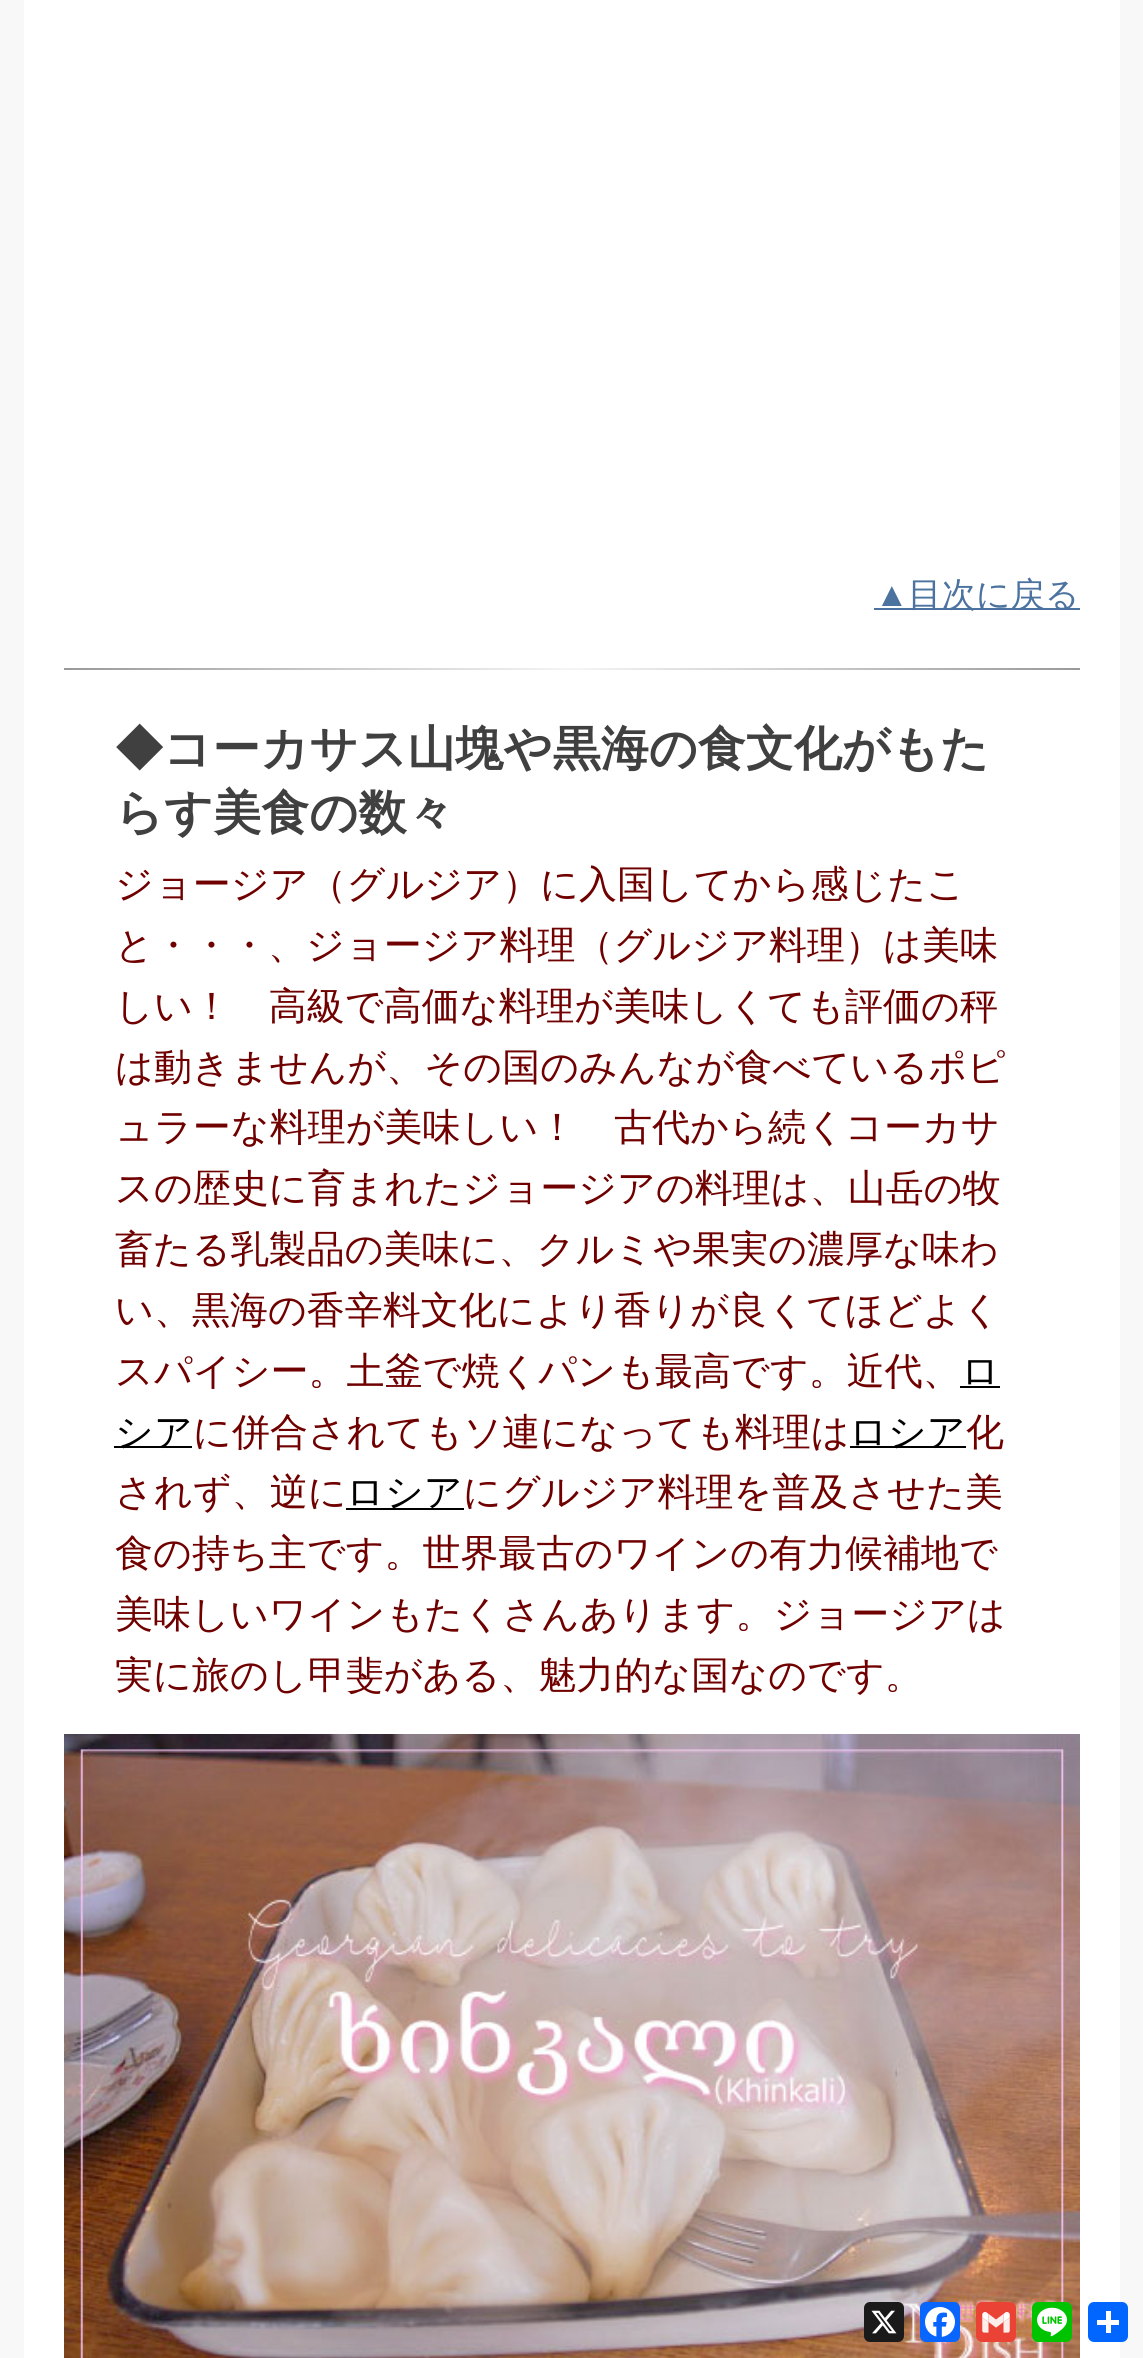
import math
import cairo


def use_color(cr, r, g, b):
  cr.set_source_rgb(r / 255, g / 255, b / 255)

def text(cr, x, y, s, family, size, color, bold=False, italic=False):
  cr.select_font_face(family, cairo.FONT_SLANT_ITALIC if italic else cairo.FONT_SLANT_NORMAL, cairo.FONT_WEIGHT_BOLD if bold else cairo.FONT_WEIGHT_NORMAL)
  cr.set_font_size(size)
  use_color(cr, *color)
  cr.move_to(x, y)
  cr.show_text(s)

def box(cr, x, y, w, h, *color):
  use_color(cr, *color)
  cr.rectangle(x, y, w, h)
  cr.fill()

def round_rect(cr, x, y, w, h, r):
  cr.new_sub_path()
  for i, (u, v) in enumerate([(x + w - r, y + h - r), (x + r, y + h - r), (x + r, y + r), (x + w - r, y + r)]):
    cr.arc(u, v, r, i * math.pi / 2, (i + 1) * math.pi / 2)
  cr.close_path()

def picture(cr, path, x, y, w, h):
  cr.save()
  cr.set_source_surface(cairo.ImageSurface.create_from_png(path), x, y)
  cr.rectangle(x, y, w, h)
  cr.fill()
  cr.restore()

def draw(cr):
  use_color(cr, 248, 248, 248)
  cr.paint()
  box(cr, 24, 0, 1096, 2358, 255, 255, 255)
  box(cr, 874, 608, 206, 2, 76, 115, 160)
  gradient = cairo.LinearGradient(64, 669, 1080, 669)
  gradient.add_color_stop_rgba(0, 0.6, 0.6, 0.6, 1)
  gradient.add_color_stop_rgba(0.5, 0.961, 0.961, 0.961, 1)
  gradient.add_color_stop_rgba(1, 0.6, 0.6, 0.6, 1)
  cr.set_source(gradient)
  cr.rectangle(64, 668, 1016, 2)
  cr.fill()
  box(cr, 960, 1386, 40, 2, 0, 0, 0)
  box(cr, 114, 1446, 78, 2, 0, 0, 0)
  box(cr, 850, 1446, 116, 2, 0, 0, 0)
  box(cr, 346, 1508, 118, 2, 0, 0, 0)
  picture(cr, "img_01.png", 64, 1734, 1016, 624)
  use_color(cr, 26, 26, 26)
  round_rect(cr, 864, 2302, 40, 40, 6)
  cr.fill()
  picture(cr, "img_02.png", 871, 2310, 26, 24)
  use_color(cr, 8, 102, 255)
  round_rect(cr, 920, 2302, 40, 40, 6)
  cr.fill()
  picture(cr, "img_03.png", 925, 2307, 30, 30)
  use_color(cr, 234, 67, 53)
  round_rect(cr, 976, 2302, 40, 40, 6)
  cr.fill()
  picture(cr, "img_04.png", 982, 2312, 28, 21)
  use_color(cr, 0, 195, 0)
  round_rect(cr, 1032, 2302, 40, 40, 6)
  cr.fill()
  picture(cr, "img_05.png", 1037, 2307, 30, 30)
  use_color(cr, 1, 102, 255)
  round_rect(cr, 1088, 2302, 40, 40, 6)
  cr.fill()
  box(cr, 1106, 2311, 5, 22, 255, 255, 255)
  box(cr, 1097, 2320, 22, 5, 255, 255, 255)
  text(cr, 875, 606, "▲", "Liberation Sans", 34, (76, 115, 160))
  text(cr, 908, 606, "目次に戻る", "WenQuanYi Zen Hei Medium", 34, (76, 115, 160))
  text(cr, 115, 765, "◆コーカサス山塊や黒海の食文化がもた", "WenQuanYi Zen Hei", 48, (64, 64, 64), bold=True)
  text(cr, 115, 829, "らす美食の数々", "WenQuanYi Zen Hei", 48, (64, 64, 64), bold=True)
  text(cr, 115, 897, "ジョージア（グルジア）に入国してから感じたこ", "WenQuanYi Zen Hei Medium", 38, (112, 0, 0))
  text(cr, 115, 958, "と・・・、ジョージア料理（グルジア料理）は美味", "WenQuanYi Zen Hei Medium", 38, (112, 0, 0))
  text(cr, 115, 1019, "しい！　高級で高価な料理が美味しくても評価の秤", "WenQuanYi Zen Hei Medium", 38, (112, 0, 0))
  text(cr, 115, 1080, "は動きませんが、その国のみんなが食べているポピ", "WenQuanYi Zen Hei Medium", 38, (112, 0, 0))
  text(cr, 115, 1140, "ュラーな料理が美味しい！　古代から続くコーカサ", "WenQuanYi Zen Hei Medium", 38, (112, 0, 0))
  text(cr, 115, 1201, "スの歴史に育まれたジョージアの料理は、山岳の牧", "WenQuanYi Zen Hei Medium", 38, (112, 0, 0))
  text(cr, 115, 1262, "畜たる乳製品の美味に、クルミや果実の濃厚な味わ", "WenQuanYi Zen Hei Medium", 38, (112, 0, 0))
  text(cr, 115, 1323, "い、黒海の香辛料文化により香りが良くてほどよく", "WenQuanYi Zen Hei Medium", 38, (112, 0, 0))
  text(cr, 115, 1384, "スパイシー。土釜で焼くパンも最高です。近代、", "WenQuanYi Zen Hei Medium", 38, (112, 0, 0))
  text(cr, 961, 1384, "ロ", "WenQuanYi Zen Hei Medium", 38, (0, 0, 0))
  text(cr, 115, 1445, "シア", "WenQuanYi Zen Hei Medium", 38, (0, 0, 0))
  text(cr, 193, 1445, "に併合されてもソ連になっても料理は", "WenQuanYi Zen Hei Medium", 38, (112, 0, 0))
  text(cr, 849, 1445, "ロシア", "WenQuanYi Zen Hei Medium", 38, (0, 0, 0))
  text(cr, 966, 1445, "化", "WenQuanYi Zen Hei Medium", 38, (112, 0, 0))
  text(cr, 115, 1505, "されず、逆に", "WenQuanYi Zen Hei Medium", 38, (112, 0, 0))
  text(cr, 346, 1505, "ロシア", "WenQuanYi Zen Hei Medium", 38, (0, 0, 0))
  text(cr, 463, 1505, "にグルジア料理を普及させた美", "WenQuanYi Zen Hei Medium", 38, (112, 0, 0))
  text(cr, 115, 1566, "食の持ち主です。世界最古のワインの有力候補地で", "WenQuanYi Zen Hei Medium", 38, (112, 0, 0))
  text(cr, 115, 1627, "美味しいワインもたくさんあります。ジョージアは", "WenQuanYi Zen Hei Medium", 38, (112, 0, 0))
  text(cr, 115, 1688, "実に旅のし甲斐がある、魅力的な国なのです。", "WenQuanYi Zen Hei Medium", 38, (112, 0, 0))


surface = cairo.ImageSurface(cairo.FORMAT_RGB24, 1143, 2358)
cr = cairo.Context(surface)
options = cairo.FontOptions()
options.set_hint_metrics(cairo.HINT_METRICS_OFF)
options.set_hint_style(cairo.HINT_STYLE_NONE)
cr.set_font_options(options)
cr.set_miter_limit(4)
draw(cr)
surface.write_to_png("out.png")
